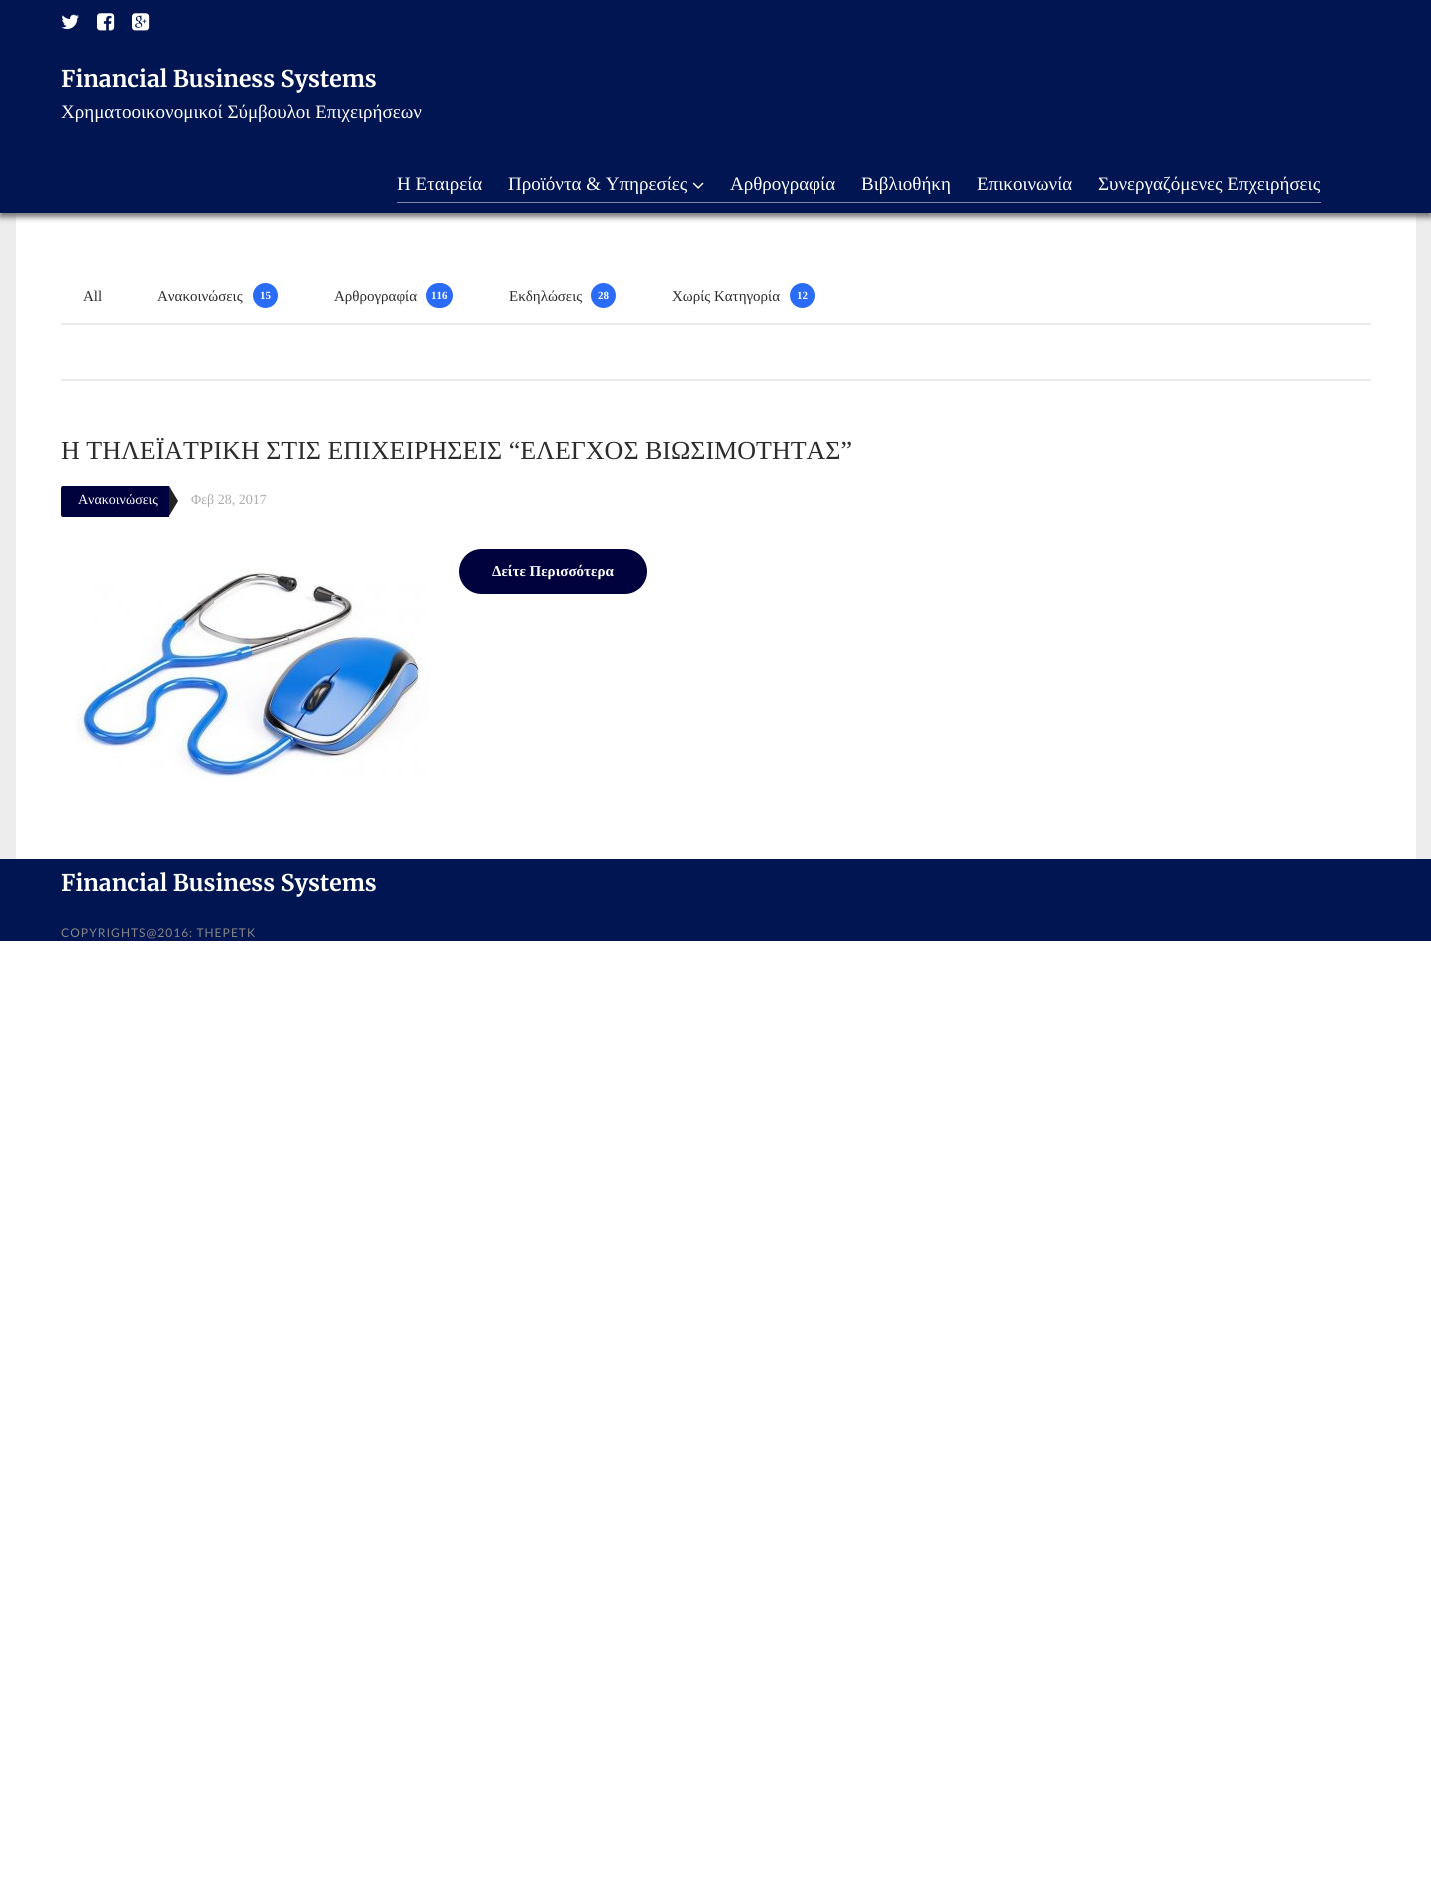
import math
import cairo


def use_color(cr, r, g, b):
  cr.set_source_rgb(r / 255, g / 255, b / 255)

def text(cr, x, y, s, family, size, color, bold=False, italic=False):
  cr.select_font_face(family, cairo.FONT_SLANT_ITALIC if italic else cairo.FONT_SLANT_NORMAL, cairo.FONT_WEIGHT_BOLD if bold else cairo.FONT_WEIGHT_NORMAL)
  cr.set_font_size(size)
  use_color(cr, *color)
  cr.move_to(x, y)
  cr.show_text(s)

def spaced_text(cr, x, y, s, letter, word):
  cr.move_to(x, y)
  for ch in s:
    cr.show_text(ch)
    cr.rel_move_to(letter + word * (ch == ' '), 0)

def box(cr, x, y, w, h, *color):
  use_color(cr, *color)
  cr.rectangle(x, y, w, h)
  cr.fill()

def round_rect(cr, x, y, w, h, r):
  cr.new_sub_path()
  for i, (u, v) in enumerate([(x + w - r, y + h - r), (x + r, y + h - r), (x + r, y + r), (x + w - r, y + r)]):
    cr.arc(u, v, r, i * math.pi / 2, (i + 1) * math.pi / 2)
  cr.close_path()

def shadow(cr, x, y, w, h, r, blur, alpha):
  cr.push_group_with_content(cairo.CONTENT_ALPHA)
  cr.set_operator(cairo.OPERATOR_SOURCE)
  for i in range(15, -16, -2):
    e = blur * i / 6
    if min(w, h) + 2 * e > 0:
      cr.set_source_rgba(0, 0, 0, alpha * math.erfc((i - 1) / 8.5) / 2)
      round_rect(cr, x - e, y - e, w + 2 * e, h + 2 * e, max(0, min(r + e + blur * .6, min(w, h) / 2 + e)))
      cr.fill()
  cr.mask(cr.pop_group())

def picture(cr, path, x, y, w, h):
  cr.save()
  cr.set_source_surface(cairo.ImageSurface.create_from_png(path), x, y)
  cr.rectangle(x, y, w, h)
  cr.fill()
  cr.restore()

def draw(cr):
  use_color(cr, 255, 255, 255)
  cr.paint()
  box(cr, 0, 213, 1431, 646, 237, 237, 237)
  box(cr, 16, 213, 1400, 646, 255, 255, 255)
  use_color(cr, 100, 100, 100)
  shadow(cr, 0, 4, 1431, 213, 0, 3, 0.9)
  box(cr, 0, 0, 1431, 213, 0, 21, 81)
  picture(cr, "img_01.png", 61, 14, 18, 15)
  picture(cr, "img_02.png", 97, 13, 18, 18)
  picture(cr, "img_03.png", 132, 13, 18, 18)
  box(cr, 397, 202, 85, 1, 128, 138, 168)
  picture(cr, "img_04.png", 692, 182, 12, 7)
  box(cr, 482, 202, 839, 1, 128, 138, 168)
  box(cr, 61, 323, 1310, 2, 235, 235, 235)
  use_color(cr, 42, 107, 247)
  cr.arc(265.5, 295.5, 12.5, 0, 2 * math.pi)
  cr.fill()
  round_rect(cr, 426, 283, 27, 25, 12.5)
  cr.fill()
  cr.arc(603.5, 295.5, 12.5, 0, 2 * math.pi)
  cr.fill()
  cr.arc(802.5, 295.5, 12.5, 0, 2 * math.pi)
  cr.fill()
  box(cr, 61, 379, 1310, 2, 235, 235, 235)
  use_color(cr, 0, 2, 62)
  cr.new_path()
  cr.move_to(63, 486)
  cr.line_to(169, 486)
  cr.line_to(169, 517)
  cr.line_to(63, 517)
  cr.curve_to(62, 517, 61, 516, 61, 515)
  cr.line_to(61, 488)
  cr.curve_to(61, 487, 62, 486, 63, 486)
  cr.close_path()
  cr.fill()
  use_color(cr, 35, 35, 35)
  cr.new_path()
  cr.move_to(169, 516)
  cr.line_to(169, 486)
  cr.line_to(178, 501)
  cr.close_path()
  cr.fill()
  picture(cr, "img_05.png", 76, 569, 353, 209)
  use_color(cr, 0, 2, 62)
  round_rect(cr, 459, 549, 188, 45, 22.5)
  cr.fill()
  box(cr, 0, 859, 1431, 82, 0, 21, 81)
  text(cr, 61, 87, "Financial Business Systems", "Merriweather", 23, (255, 255, 255), bold=True)
  text(cr, 61, 118, "Χρηματοοικονομικοί Σύμβουλοι Επιχειρήσεων", "Tinos", 19, (255, 255, 255))
  text(cr, 397, 190, "Η Εταιρεία", "Tinos", 19, (255, 255, 255))
  text(cr, 508, 190, "Προϊόντα & Υπηρεσίες", "Tinos", 19, (255, 255, 255))
  text(cr, 730, 190, "Αρθρογραφία", "Tinos", 19, (255, 255, 255))
  text(cr, 861, 190, "Βιβλιοθήκη", "Tinos", 19, (255, 255, 255))
  text(cr, 977, 190, "Επικοινωνία", "Tinos", 19, (255, 255, 255))
  text(cr, 1098, 190, "Συνεργαζόμενες Επχειρήσεις", "Tinos", 19, (255, 255, 255))
  text(cr, 83, 301, "All", "Tinos", 15, (44, 44, 44))
  text(cr, 157, 301, "Ανακοινώσεις", "Tinos", 15, (44, 44, 44))
  text(cr, 260, 299, "15", "Tinos", 11, (255, 255, 255), bold=True)
  text(cr, 334, 301, "Αρθρογραφία", "Tinos", 15, (44, 44, 44))
  text(cr, 431, 299, "116", "Tinos", 11, (255, 255, 255), bold=True)
  text(cr, 509, 301, "Εκδηλώσεις", "Tinos", 15, (44, 44, 44))
  text(cr, 598, 299, "28", "Tinos", 11, (255, 255, 255), bold=True)
  text(cr, 672, 301, "Χωρίς Κατηγορία", "Tinos", 15, (44, 44, 44))
  text(cr, 797, 299, "12", "Tinos", 11, (255, 255, 255), bold=True)
  text(cr, 61, 459, "Η ΤΗΛΕΪΑΤΡΙΚΗ ΣΤΙΣ ΕΠΙΧΕΙΡΗΣΕΙΣ “ΕΛΕΓΧΟΣ ΒΙΩΣΙΜΟΤΗΤΑΣ”", "Tinos", 26, (44, 44, 44))
  text(cr, 78, 504, "Ανακοινώσεις", "Tinos", 14, (255, 255, 255))
  text(cr, 191, 504, "Φεβ 28, 2017", "Tinos", 14, (172, 172, 172))
  text(cr, 492, 576, "Δείτε Περισσότερα", "Tinos", 15, (255, 255, 255), bold=True)
  text(cr, 61, 891, "Financial Business Systems", "Merriweather", 23, (255, 255, 255), bold=True)
  cr.select_font_face("Lato")
  cr.set_font_size(12)
  use_color(cr, 135, 135, 135)
  spaced_text(cr, 61, 937, "COPYRIGHTS@2016: THEPETK", 1, 0)


surface = cairo.ImageSurface(cairo.FORMAT_RGB24, 1431, 1879)
cr = cairo.Context(surface)
options = cairo.FontOptions()
options.set_hint_metrics(cairo.HINT_METRICS_OFF)
options.set_hint_style(cairo.HINT_STYLE_NONE)
cr.set_font_options(options)
cr.set_miter_limit(4)
draw(cr)
surface.write_to_png("out.png")
